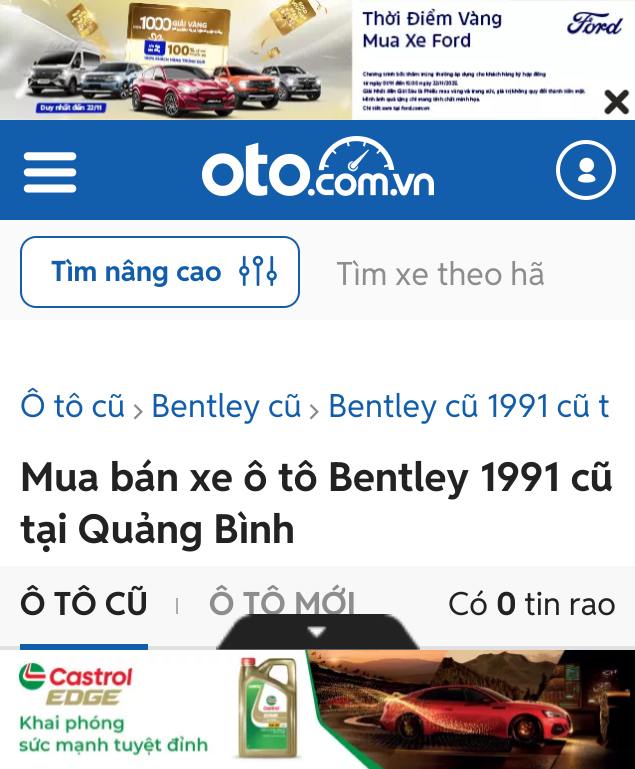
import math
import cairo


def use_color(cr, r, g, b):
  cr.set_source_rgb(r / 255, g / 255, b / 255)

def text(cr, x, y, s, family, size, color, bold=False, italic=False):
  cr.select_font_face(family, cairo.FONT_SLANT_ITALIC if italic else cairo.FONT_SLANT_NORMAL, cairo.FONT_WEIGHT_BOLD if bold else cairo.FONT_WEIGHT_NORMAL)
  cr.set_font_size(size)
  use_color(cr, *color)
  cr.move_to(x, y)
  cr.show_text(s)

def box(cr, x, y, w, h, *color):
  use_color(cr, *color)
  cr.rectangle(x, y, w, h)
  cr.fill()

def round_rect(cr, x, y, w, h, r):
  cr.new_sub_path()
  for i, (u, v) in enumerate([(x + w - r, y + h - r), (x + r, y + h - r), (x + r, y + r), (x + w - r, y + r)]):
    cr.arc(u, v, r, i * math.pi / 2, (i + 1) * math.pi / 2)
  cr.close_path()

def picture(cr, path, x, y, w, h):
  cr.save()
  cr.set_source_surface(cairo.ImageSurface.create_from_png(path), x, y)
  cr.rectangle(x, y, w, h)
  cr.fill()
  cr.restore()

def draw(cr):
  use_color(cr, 255, 255, 255)
  cr.paint()
  box(cr, 0, 120, 635, 100, 19, 94, 172)
  picture(cr, "img_01.png", 23, 152, 54, 41)
  picture(cr, "img_02.png", 202, 136, 232, 60)
  cr.arc(586, 170, 28, 0, 2 * math.pi)
  use_color(cr, 255, 255, 255)
  cr.set_line_width(4)
  cr.stroke()
  picture(cr, "img_03.png", 578, 157, 18, 26)
  box(cr, 0, 220, 635, 100, 250, 250, 250)
  use_color(cr, 255, 255, 255)
  round_rect(cr, 21, 237, 278, 70, 15)
  cr.fill_preserve()
  use_color(cr, 19, 94, 172)
  cr.set_line_width(2)
  cr.stroke()
  picture(cr, "img_04.png", 239, 255, 38, 32)
  picture(cr, "img_05.png", 0, 0, 635, 120)
  picture(cr, "img_06.png", 598, 89, 37, 31)
  picture(cr, "img_07.png", 134, 404, 9, 16)
  picture(cr, "img_07.png", 310, 404, 9, 16)
  box(cr, 0, 566, 635, 80, 248, 248, 248)
  box(cr, 0, 646, 635, 4, 225, 225, 225)
  box(cr, 20, 644, 128, 6, 19, 94, 172)
  box(cr, 176, 598, 2, 16, 172, 172, 172)
  picture(cr, "img_09.png", 16, 650, 619, 119)
  text(cr, 51, 281, "Tìm nâng cao", "Reddit Sans", 28, (19, 94, 172), bold=True)
  text(cr, 336, 285, "Tìm xe theo hã", "Reddit Sans", 32, (141, 141, 141))
  text(cr, 20, 417, "Ô tô cũ", "Reddit Sans", 32, (19, 94, 172))
  text(cr, 151, 417, "Bentley cũ", "Reddit Sans", 32, (19, 94, 172))
  text(cr, 328, 417, "Bentley cũ 1991 cũ t", "Reddit Sans", 32, (19, 94, 172))
  text(cr, 20, 491, "Mua bán xe ô tô Bentley 1991 cũ", "Reddit Sans", 40, (34, 34, 34), bold=True)
  text(cr, 20, 543, "tại Quảng Bình", "Reddit Sans", 40, (34, 34, 34), bold=True)
  text(cr, 20, 615, "Ô TÔ CŨ", "Reddit Sans", 32, (34, 34, 34), bold=True)
  text(cr, 209, 615, "Ô TÔ MỚI", "Reddit Sans", 32, (141, 141, 141), bold=True)
  text(cr, 448, 615, "Có", "Reddit Sans", 32, (34, 34, 34))
  text(cr, 496, 615, "0", "Reddit Sans", 32, (34, 34, 34), bold=True)
  text(cr, 524, 615, "tin rao", "Reddit Sans", 32, (34, 34, 34))
  picture(cr, "img_08.png", 216, 614, 204, 36)


surface = cairo.ImageSurface(cairo.FORMAT_RGB24, 635, 769)
cr = cairo.Context(surface)
options = cairo.FontOptions()
options.set_hint_metrics(cairo.HINT_METRICS_OFF)
options.set_hint_style(cairo.HINT_STYLE_NONE)
cr.set_font_options(options)
cr.set_miter_limit(4)
draw(cr)
surface.write_to_png("out.png")
